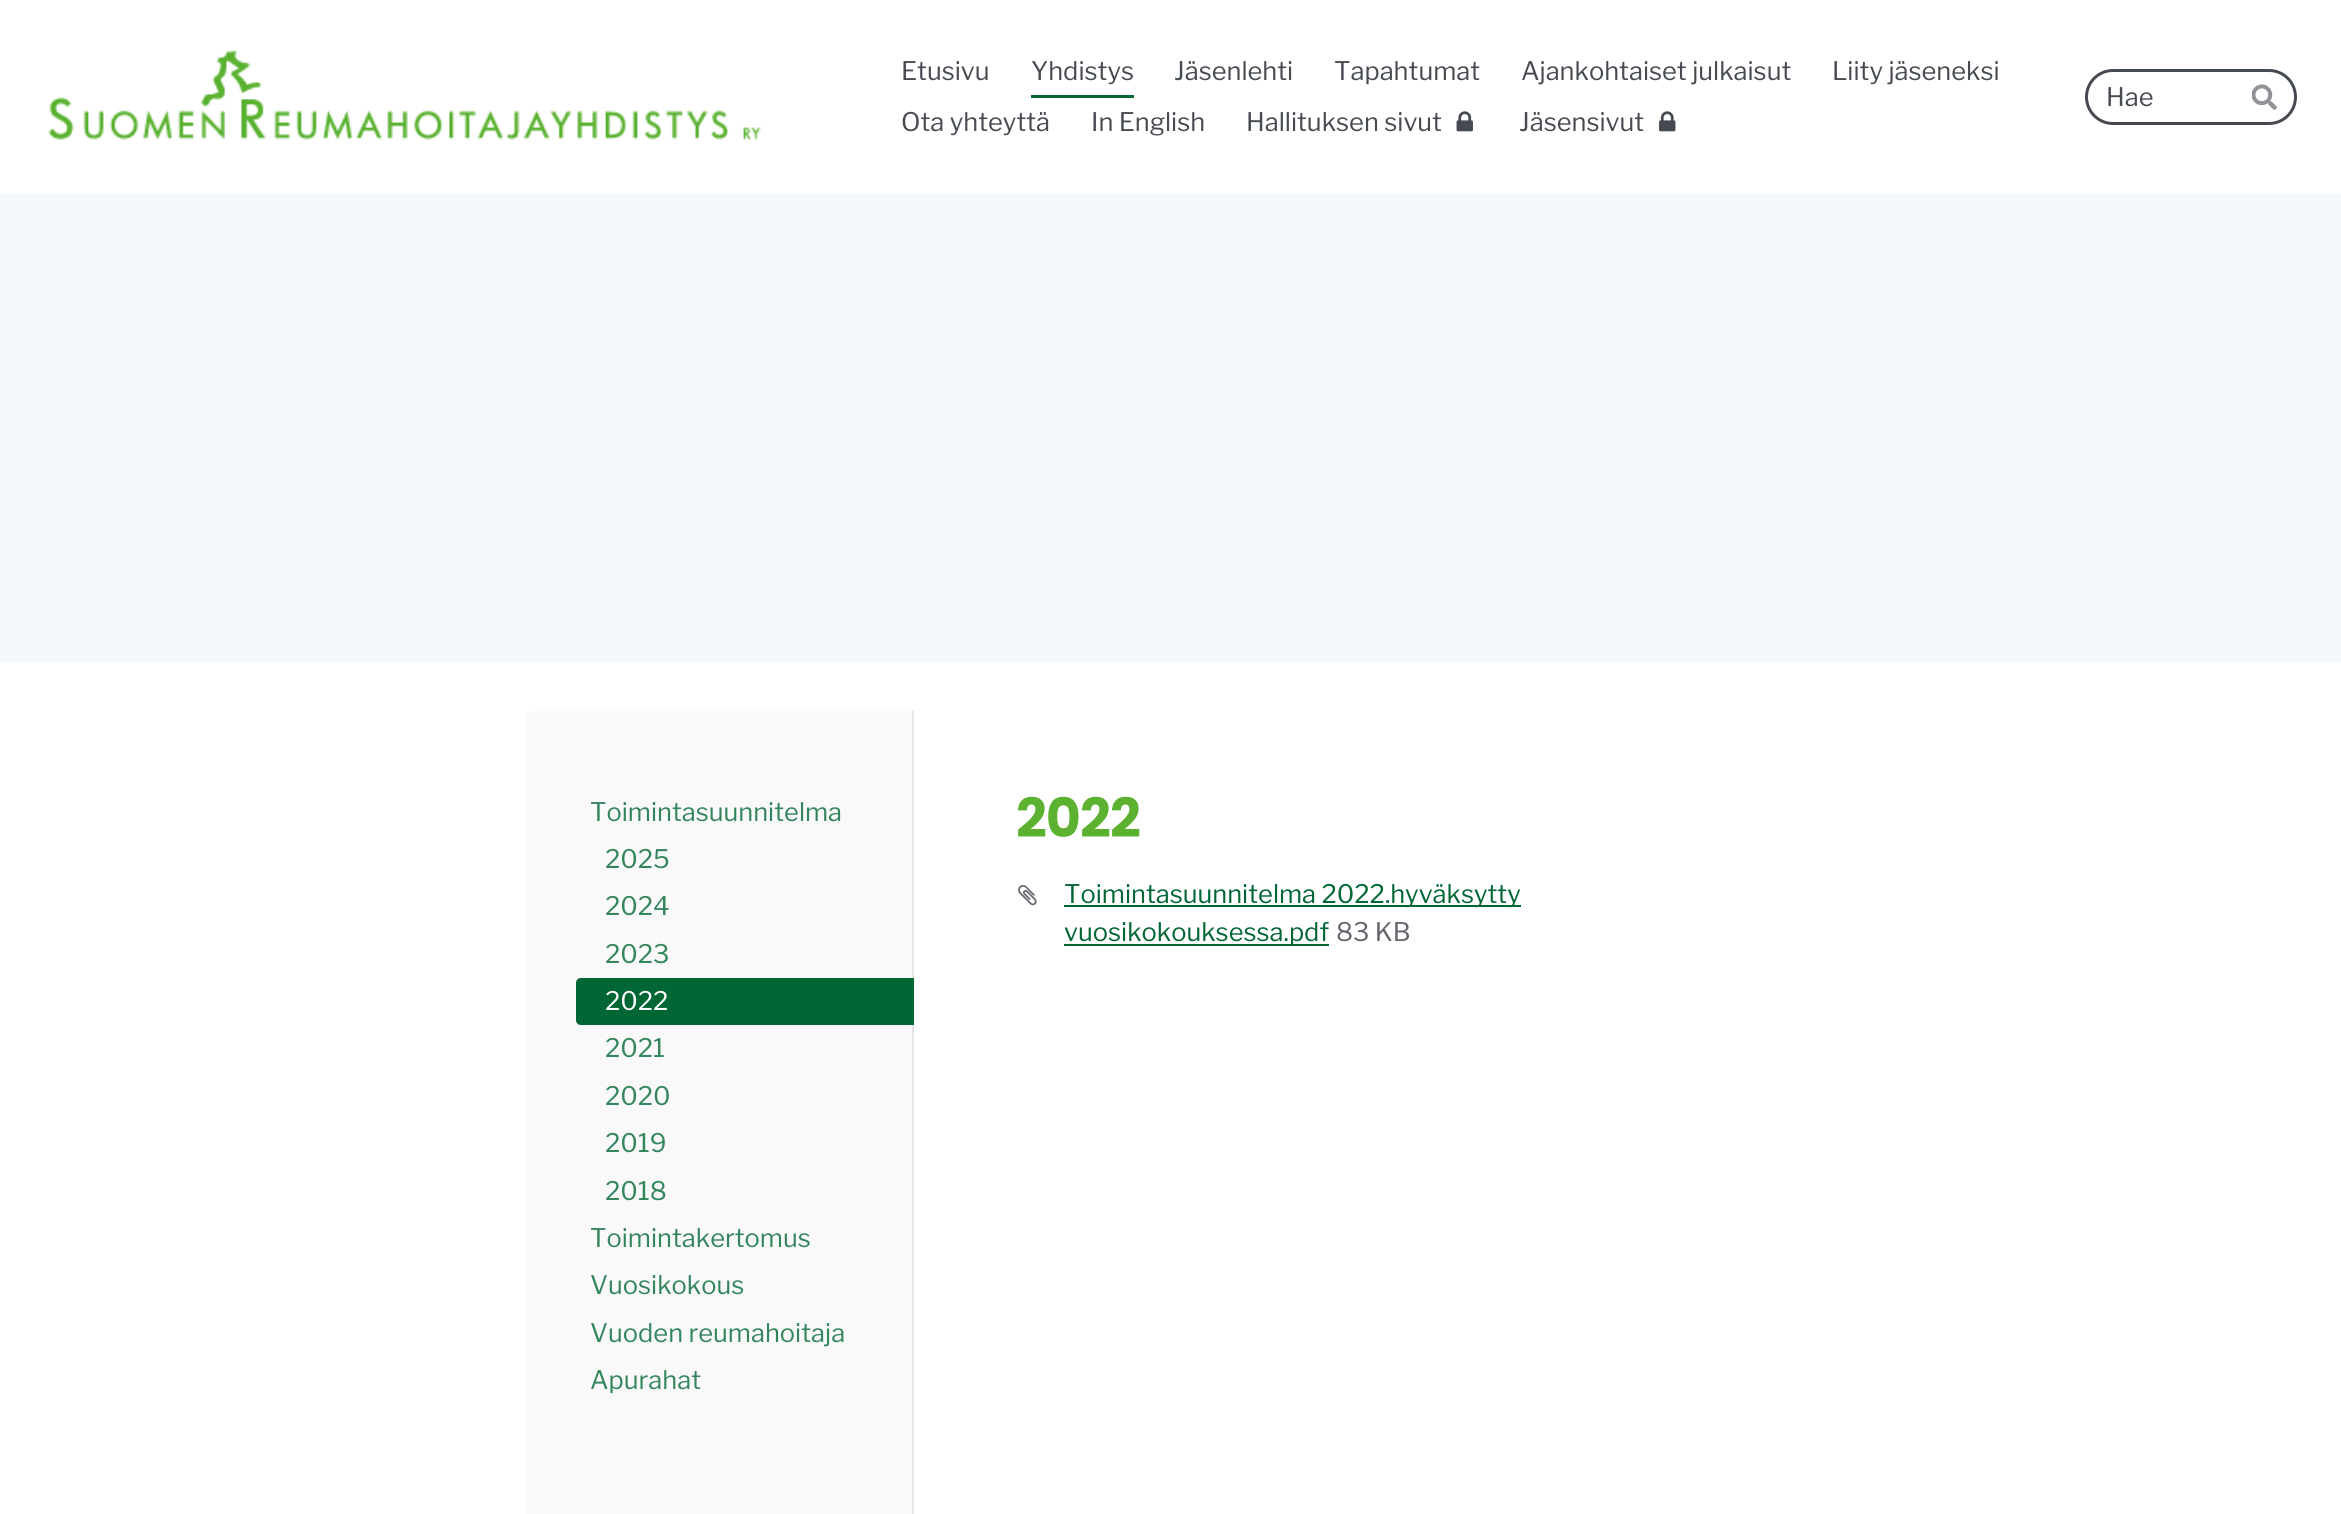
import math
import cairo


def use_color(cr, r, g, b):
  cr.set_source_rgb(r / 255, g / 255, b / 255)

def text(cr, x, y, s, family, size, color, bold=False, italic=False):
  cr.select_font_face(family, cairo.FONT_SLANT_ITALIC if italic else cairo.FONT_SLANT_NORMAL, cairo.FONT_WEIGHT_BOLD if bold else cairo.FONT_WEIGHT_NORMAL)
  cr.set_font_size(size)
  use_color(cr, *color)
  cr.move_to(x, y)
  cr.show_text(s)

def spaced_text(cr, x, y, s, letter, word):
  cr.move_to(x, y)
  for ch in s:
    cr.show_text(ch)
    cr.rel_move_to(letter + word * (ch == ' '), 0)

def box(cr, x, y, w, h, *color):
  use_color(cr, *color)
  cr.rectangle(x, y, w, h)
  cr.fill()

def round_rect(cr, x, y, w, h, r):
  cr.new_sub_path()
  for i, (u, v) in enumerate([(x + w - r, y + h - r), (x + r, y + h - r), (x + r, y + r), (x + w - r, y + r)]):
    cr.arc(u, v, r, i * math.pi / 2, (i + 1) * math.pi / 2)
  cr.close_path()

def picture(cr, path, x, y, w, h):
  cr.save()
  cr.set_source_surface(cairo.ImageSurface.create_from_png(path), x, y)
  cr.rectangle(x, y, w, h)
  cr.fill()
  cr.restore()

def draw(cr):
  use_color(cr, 255, 255, 255)
  cr.paint()
  box(cr, 0, 194, 2341, 468, 243, 249, 253)
  picture(cr, "img_01.png", 48, 50, 713, 90)
  box(cr, 1031, 95, 103, 3, 0, 102, 51)
  picture(cr, "img_02.png", 1456, 111, 17, 21)
  picture(cr, "img_03.png", 1659, 111, 17, 21)
  round_rect(cr, 2086.5, 70.5, 209, 53, 26.5)
  use_color(cr, 70, 74, 81)
  cr.set_line_width(3)
  cr.stroke()
  picture(cr, "img_04.png", 2252, 84, 25, 26)
  use_color(cr, 249, 249, 249)
  cr.new_path()
  cr.move_to(532, 711)
  cr.line_to(914, 711)
  cr.line_to(914, 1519)
  cr.line_to(527, 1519)
  cr.line_to(527, 716)
  cr.curve_to(527, 713, 529, 711, 532, 711)
  cr.close_path()
  cr.fill()
  use_color(cr, 230, 230, 230)
  cr.new_path()
  cr.move_to(527, 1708)
  cr.line_to(527, 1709)
  cr.line_to(914, 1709)
  cr.line_to(914, 711)
  cr.line_to(912, 711)
  cr.line_to(912, 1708)
  cr.close_path()
  cr.fill()
  use_color(cr, 0, 102, 51)
  cr.new_path()
  cr.move_to(581, 978)
  cr.line_to(914, 978)
  cr.line_to(914, 1025)
  cr.line_to(581, 1025)
  cr.curve_to(578, 1025, 576, 1023, 576, 1020)
  cr.line_to(576, 983)
  cr.curve_to(576, 980, 578, 978, 581, 978)
  cr.close_path()
  cr.fill()
  gradient = cairo.LinearGradient(720, 1484, 720, 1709)
  gradient.add_color_stop_rgba(0, 1, 1, 1, 0)
  gradient.add_color_stop_rgba(1, 1, 1, 1, 1)
  cr.set_source(gradient)
  cr.rectangle(912, 1507, 2, 7)
  cr.fill()
  picture(cr, "img_05.png", 1018, 885, 19, 21)
  box(cr, 1064, 905, 457, 2, 0, 102, 51)
  box(cr, 1064, 944, 265, 2, 0, 102, 51)
  text(cr, 901, 80, "Etusivu", "Libre Franklin Thin", 25.5, (70, 74, 81))
  text(cr, 1031, 80, "Yhdistys", "Libre Franklin Thin", 25.5, (70, 74, 81))
  text(cr, 1174, 80, "Jäsenlehti", "Libre Franklin Thin", 25.5, (70, 74, 81))
  text(cr, 1334, 80, "Tapahtumat", "Libre Franklin Thin", 25.5, (70, 74, 81))
  text(cr, 1521, 80, "Ajankohtaiset julkaisut", "Libre Franklin Thin", 25.5, (70, 74, 81))
  text(cr, 1832, 80, "Liity jäseneksi", "Libre Franklin Thin", 25.5, (70, 74, 81))
  text(cr, 901, 131, "Ota yhteyttä", "Libre Franklin Thin", 25.5, (70, 74, 81))
  text(cr, 1091, 131, "In English", "Libre Franklin Thin", 25.5, (70, 74, 81))
  text(cr, 1246, 131, "Hallituksen sivut", "Libre Franklin Thin", 25.5, (70, 74, 81))
  text(cr, 1519, 131, "Jäsensivut", "Libre Franklin Thin", 25.5, (70, 74, 81))
  text(cr, 2106, 106, "Hae", "Libre Franklin Thin", 25.5, (70, 74, 81))
  text(cr, 590, 821, "Toimintasuunnitelma", "Libre Franklin Thin", 25.5, (51, 133, 92))
  text(cr, 605, 868, "2025", "Libre Franklin Thin", 25.5, (51, 133, 92))
  text(cr, 605, 915, "2024", "Libre Franklin Thin", 25.5, (51, 133, 92))
  text(cr, 605, 963, "2023", "Libre Franklin Thin", 25.5, (51, 133, 92))
  text(cr, 605, 1010, "2022", "Libre Franklin Thin", 25.5, (255, 255, 255))
  text(cr, 605, 1057, "2021", "Libre Franklin Thin", 25.5, (51, 133, 92))
  text(cr, 605, 1105, "2020", "Libre Franklin Thin", 25.5, (51, 133, 92))
  text(cr, 605, 1152, "2019", "Libre Franklin Thin", 25.5, (51, 133, 92))
  text(cr, 605, 1200, "2018", "Libre Franklin Thin", 25.5, (51, 133, 92))
  text(cr, 590, 1247, "Toimintakertomus", "Libre Franklin Thin", 25.5, (51, 133, 92))
  text(cr, 590, 1294, "Vuosikokous", "Libre Franklin Thin", 25.5, (51, 133, 92))
  text(cr, 590, 1342, "Vuoden reumahoitaja", "Libre Franklin Thin", 25.5, (51, 133, 92))
  text(cr, 590, 1389, "Apurahat", "Libre Franklin Thin", 25.5, (51, 133, 92))
  cr.select_font_face("Poppins", cairo.FONT_SLANT_NORMAL, cairo.FONT_WEIGHT_BOLD)
  cr.set_font_size(54)
  use_color(cr, 92, 177, 48)
  spaced_text(cr, 1016, 837, "2022", -1, 0)
  text(cr, 1064, 903, "Toimintasuunnitelma 2022.hyväksytty", "Libre Franklin Thin", 25.5, (0, 102, 51))
  text(cr, 1064, 941, "vuosikokouksessa.pdf", "Libre Franklin Thin", 25.5, (0, 102, 51))
  text(cr, 1336, 941, "83 KB", "Libre Franklin Thin", 25.5, (98, 101, 107))


surface = cairo.ImageSurface(cairo.FORMAT_RGB24, 2341, 1514)
cr = cairo.Context(surface)
options = cairo.FontOptions()
options.set_hint_metrics(cairo.HINT_METRICS_OFF)
options.set_hint_style(cairo.HINT_STYLE_NONE)
cr.set_font_options(options)
cr.set_miter_limit(4)
draw(cr)
surface.write_to_png("out.png")
